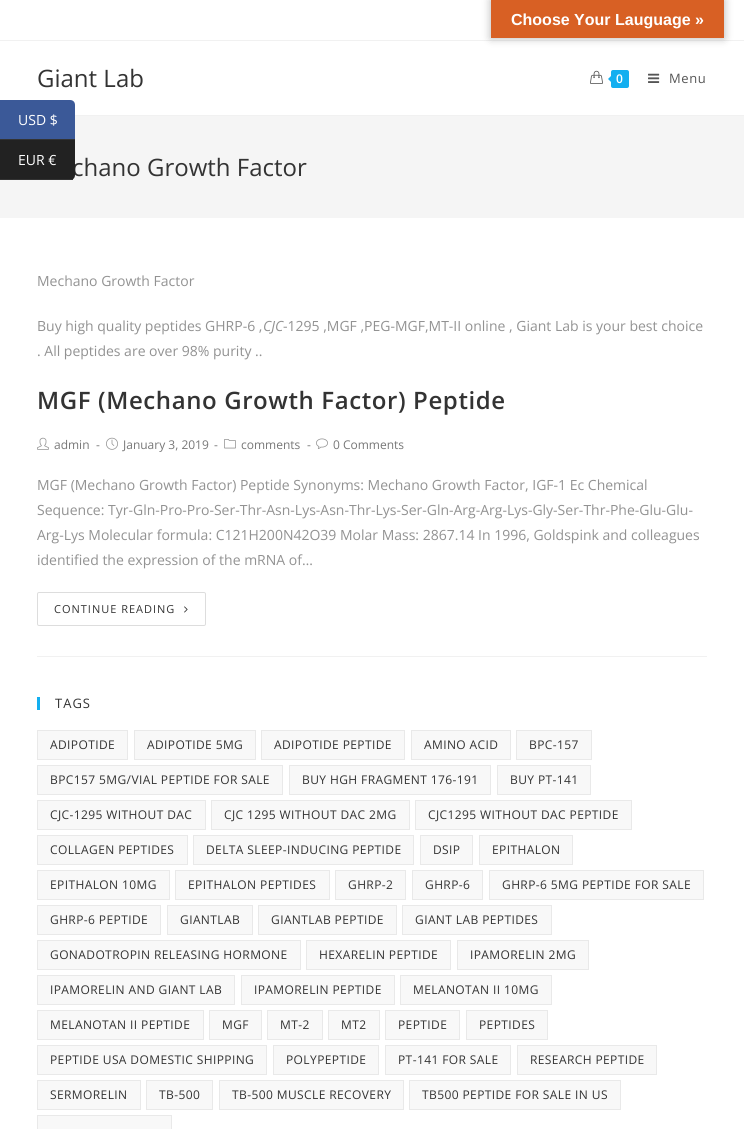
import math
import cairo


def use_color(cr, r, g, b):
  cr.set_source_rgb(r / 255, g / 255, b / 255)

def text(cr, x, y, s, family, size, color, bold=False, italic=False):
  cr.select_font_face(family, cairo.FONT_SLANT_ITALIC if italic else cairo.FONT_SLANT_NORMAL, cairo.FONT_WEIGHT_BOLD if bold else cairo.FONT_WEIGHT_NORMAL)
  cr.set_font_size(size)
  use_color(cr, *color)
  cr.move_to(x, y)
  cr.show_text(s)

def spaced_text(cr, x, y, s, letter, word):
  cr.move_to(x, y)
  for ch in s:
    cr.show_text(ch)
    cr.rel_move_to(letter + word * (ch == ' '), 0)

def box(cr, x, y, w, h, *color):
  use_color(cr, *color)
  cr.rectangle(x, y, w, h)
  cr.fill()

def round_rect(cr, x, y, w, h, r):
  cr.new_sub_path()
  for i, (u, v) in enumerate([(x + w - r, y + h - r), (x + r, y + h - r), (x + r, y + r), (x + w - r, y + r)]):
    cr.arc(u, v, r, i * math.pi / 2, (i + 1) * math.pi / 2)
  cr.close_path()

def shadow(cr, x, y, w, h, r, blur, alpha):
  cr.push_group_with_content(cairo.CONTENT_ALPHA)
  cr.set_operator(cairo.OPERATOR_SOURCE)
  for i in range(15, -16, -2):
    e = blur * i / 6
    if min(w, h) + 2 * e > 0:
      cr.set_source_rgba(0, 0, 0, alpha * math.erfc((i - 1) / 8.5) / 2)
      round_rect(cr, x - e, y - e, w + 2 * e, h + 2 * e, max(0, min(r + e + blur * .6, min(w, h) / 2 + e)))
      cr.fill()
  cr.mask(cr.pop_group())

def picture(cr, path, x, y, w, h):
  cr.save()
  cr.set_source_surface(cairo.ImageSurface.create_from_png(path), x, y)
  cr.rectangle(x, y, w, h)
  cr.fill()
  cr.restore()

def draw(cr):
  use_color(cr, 255, 255, 255)
  cr.paint()
  box(cr, 0, 40, 744, 1, 241, 241, 241)
  use_color(cr, 0, 0, 0)
  shadow(cr, 491, 0, 233, 38, 0, 4.5, 0.3)
  box(cr, 491, 0, 233, 38, 216, 96, 36)
  box(cr, 75, 115, 669, 1, 241, 241, 241)
  picture(cr, "img_01.png", 590, 70, 13, 14)
  use_color(cr, 19, 175, 240)
  round_rect(cr, 611, 70, 18, 18, 2)
  cr.fill()
  cr.new_path()
  cr.move_to(613, 74)
  cr.line_to(613, 84)
  cr.line_to(608, 79)
  cr.close_path()
  cr.fill()
  picture(cr, "img_02.png", 648, 73, 12, 10)
  box(cr, 0, 116, 744, 102, 245, 245, 245)
  box(cr, 37, 656, 670, 1, 241, 241, 241)
  picture(cr, "img_03.png", 37, 437, 12, 13)
  picture(cr, "img_04.png", 106, 437, 12, 13)
  picture(cr, "img_05.png", 224, 439, 12, 10)
  picture(cr, "img_06.png", 316, 438, 12, 11)
  round_rect(cr, 37.5, 592.5, 168, 33, 1.5)
  use_color(cr, 221, 221, 221)
  cr.set_line_width(1)
  cr.stroke()
  picture(cr, "img_07.png", 184, 606, 4, 7)
  box(cr, 37, 697, 3, 13, 19, 175, 240)
  use_color(cr, 248, 248, 248)
  cr.rectangle(37.5, 730.5, 90, 29)
  cr.fill_preserve()
  use_color(cr, 233, 233, 233)
  cr.stroke()
  use_color(cr, 248, 248, 248)
  cr.rectangle(134.5, 730.5, 121, 29)
  cr.fill_preserve()
  use_color(cr, 233, 233, 233)
  cr.stroke()
  use_color(cr, 248, 248, 248)
  cr.rectangle(261.5, 730.5, 143, 29)
  cr.fill_preserve()
  use_color(cr, 233, 233, 233)
  cr.stroke()
  use_color(cr, 248, 248, 248)
  cr.rectangle(411.5, 730.5, 99, 29)
  cr.fill_preserve()
  use_color(cr, 233, 233, 233)
  cr.stroke()
  use_color(cr, 248, 248, 248)
  cr.rectangle(516.5, 730.5, 75, 29)
  cr.fill_preserve()
  use_color(cr, 233, 233, 233)
  cr.stroke()
  use_color(cr, 248, 248, 248)
  cr.rectangle(37.5, 765.5, 245, 29)
  cr.fill_preserve()
  use_color(cr, 233, 233, 233)
  cr.stroke()
  use_color(cr, 248, 248, 248)
  cr.rectangle(289.5, 765.5, 201, 29)
  cr.fill_preserve()
  use_color(cr, 233, 233, 233)
  cr.stroke()
  use_color(cr, 248, 248, 248)
  cr.rectangle(497.5, 765.5, 93, 29)
  cr.fill_preserve()
  use_color(cr, 233, 233, 233)
  cr.stroke()
  use_color(cr, 248, 248, 248)
  cr.rectangle(37.5, 800.5, 168, 29)
  cr.fill_preserve()
  use_color(cr, 233, 233, 233)
  cr.stroke()
  use_color(cr, 248, 248, 248)
  cr.rectangle(211.5, 800.5, 198, 29)
  cr.fill_preserve()
  use_color(cr, 233, 233, 233)
  cr.stroke()
  use_color(cr, 248, 248, 248)
  cr.rectangle(415.5, 800.5, 216, 29)
  cr.fill_preserve()
  use_color(cr, 233, 233, 233)
  cr.stroke()
  use_color(cr, 248, 248, 248)
  cr.rectangle(37.5, 835.5, 150, 29)
  cr.fill_preserve()
  use_color(cr, 233, 233, 233)
  cr.stroke()
  use_color(cr, 248, 248, 248)
  cr.rectangle(193.5, 835.5, 220, 29)
  cr.fill_preserve()
  use_color(cr, 233, 233, 233)
  cr.stroke()
  use_color(cr, 248, 248, 248)
  cr.rectangle(420.5, 835.5, 52, 29)
  cr.fill_preserve()
  use_color(cr, 233, 233, 233)
  cr.stroke()
  use_color(cr, 248, 248, 248)
  cr.rectangle(479.5, 835.5, 93, 29)
  cr.fill_preserve()
  use_color(cr, 233, 233, 233)
  cr.stroke()
  use_color(cr, 248, 248, 248)
  cr.rectangle(37.5, 870.5, 132, 29)
  cr.fill_preserve()
  use_color(cr, 233, 233, 233)
  cr.stroke()
  use_color(cr, 248, 248, 248)
  cr.rectangle(175.5, 870.5, 154, 29)
  cr.fill_preserve()
  use_color(cr, 233, 233, 233)
  cr.stroke()
  use_color(cr, 248, 248, 248)
  cr.rectangle(335.5, 870.5, 70, 29)
  cr.fill_preserve()
  use_color(cr, 233, 233, 233)
  cr.stroke()
  use_color(cr, 248, 248, 248)
  cr.rectangle(412.5, 870.5, 70, 29)
  cr.fill_preserve()
  use_color(cr, 233, 233, 233)
  cr.stroke()
  use_color(cr, 248, 248, 248)
  cr.rectangle(489.5, 870.5, 214, 29)
  cr.fill_preserve()
  use_color(cr, 233, 233, 233)
  cr.stroke()
  use_color(cr, 248, 248, 248)
  cr.rectangle(37.5, 905.5, 123, 29)
  cr.fill_preserve()
  use_color(cr, 233, 233, 233)
  cr.stroke()
  use_color(cr, 248, 248, 248)
  cr.rectangle(167.5, 905.5, 85, 29)
  cr.fill_preserve()
  use_color(cr, 233, 233, 233)
  cr.stroke()
  use_color(cr, 248, 248, 248)
  cr.rectangle(258.5, 905.5, 138, 29)
  cr.fill_preserve()
  use_color(cr, 233, 233, 233)
  cr.stroke()
  use_color(cr, 248, 248, 248)
  cr.rectangle(402.5, 905.5, 149, 29)
  cr.fill_preserve()
  use_color(cr, 233, 233, 233)
  cr.stroke()
  use_color(cr, 248, 248, 248)
  cr.rectangle(37.5, 940.5, 263, 29)
  cr.fill_preserve()
  use_color(cr, 233, 233, 233)
  cr.stroke()
  use_color(cr, 248, 248, 248)
  cr.rectangle(306.5, 940.5, 144, 29)
  cr.fill_preserve()
  use_color(cr, 233, 233, 233)
  cr.stroke()
  use_color(cr, 248, 248, 248)
  cr.rectangle(457.5, 940.5, 131, 29)
  cr.fill_preserve()
  use_color(cr, 233, 233, 233)
  cr.stroke()
  use_color(cr, 248, 248, 248)
  cr.rectangle(37.5, 975.5, 197, 29)
  cr.fill_preserve()
  use_color(cr, 233, 233, 233)
  cr.stroke()
  use_color(cr, 248, 248, 248)
  cr.rectangle(241.5, 975.5, 153, 29)
  cr.fill_preserve()
  use_color(cr, 233, 233, 233)
  cr.stroke()
  use_color(cr, 248, 248, 248)
  cr.rectangle(400.5, 975.5, 151, 29)
  cr.fill_preserve()
  use_color(cr, 233, 233, 233)
  cr.stroke()
  use_color(cr, 248, 248, 248)
  cr.rectangle(37.5, 1010.5, 166, 29)
  cr.fill_preserve()
  use_color(cr, 233, 233, 233)
  cr.stroke()
  use_color(cr, 248, 248, 248)
  cr.rectangle(209.5, 1010.5, 52, 29)
  cr.fill_preserve()
  use_color(cr, 233, 233, 233)
  cr.stroke()
  use_color(cr, 248, 248, 248)
  cr.rectangle(267.5, 1010.5, 55, 29)
  cr.fill_preserve()
  use_color(cr, 233, 233, 233)
  cr.stroke()
  use_color(cr, 248, 248, 248)
  cr.rectangle(328.5, 1010.5, 51, 29)
  cr.fill_preserve()
  use_color(cr, 233, 233, 233)
  cr.stroke()
  use_color(cr, 248, 248, 248)
  cr.rectangle(385.5, 1010.5, 74, 29)
  cr.fill_preserve()
  use_color(cr, 233, 233, 233)
  cr.stroke()
  use_color(cr, 248, 248, 248)
  cr.rectangle(466.5, 1010.5, 81, 29)
  cr.fill_preserve()
  use_color(cr, 233, 233, 233)
  cr.stroke()
  use_color(cr, 248, 248, 248)
  cr.rectangle(37.5, 1045.5, 229, 29)
  cr.fill_preserve()
  use_color(cr, 233, 233, 233)
  cr.stroke()
  use_color(cr, 248, 248, 248)
  cr.rectangle(273.5, 1045.5, 105, 29)
  cr.fill_preserve()
  use_color(cr, 233, 233, 233)
  cr.stroke()
  use_color(cr, 248, 248, 248)
  cr.rectangle(385.5, 1045.5, 125, 29)
  cr.fill_preserve()
  use_color(cr, 233, 233, 233)
  cr.stroke()
  use_color(cr, 248, 248, 248)
  cr.rectangle(517.5, 1045.5, 139, 29)
  cr.fill_preserve()
  use_color(cr, 233, 233, 233)
  cr.stroke()
  use_color(cr, 248, 248, 248)
  cr.rectangle(37.5, 1080.5, 103, 29)
  cr.fill_preserve()
  use_color(cr, 233, 233, 233)
  cr.stroke()
  use_color(cr, 248, 248, 248)
  cr.rectangle(146.5, 1080.5, 66, 29)
  cr.fill_preserve()
  use_color(cr, 233, 233, 233)
  cr.stroke()
  use_color(cr, 248, 248, 248)
  cr.rectangle(219.5, 1080.5, 184, 29)
  cr.fill_preserve()
  use_color(cr, 233, 233, 233)
  cr.stroke()
  use_color(cr, 248, 248, 248)
  cr.rectangle(409.5, 1080.5, 211, 29)
  cr.fill_preserve()
  use_color(cr, 233, 233, 233)
  cr.stroke()
  use_color(cr, 248, 248, 248)
  cr.rectangle(37.5, 1115.5, 134, 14)
  cr.fill_preserve()
  use_color(cr, 233, 233, 233)
  cr.stroke()
  use_color(cr, 59, 89, 152)
  cr.new_path()
  cr.move_to(0, 100)
  cr.line_to(70, 100)
  cr.curve_to(73, 100, 75, 102, 75, 105)
  cr.line_to(75, 140)
  cr.line_to(0, 140)
  cr.close_path()
  cr.fill()
  box(cr, 0, 139, 75, 1, 51, 51, 51)
  text(cr, 511, 25, "Choose Your Lauguage »", "Liberation Sans", 16, (255, 255, 255), bold=True)
  text(cr, 37, 87, "Giant Lab", "Open Sans", 24, (51, 51, 51))
  cr.select_font_face("Open Sans SemiBold")
  cr.set_font_size(12)
  use_color(cr, 255, 255, 255)
  spaced_text(cr, 616, 83, "0", 0.6, 0)
  cr.select_font_face("Open Sans")
  cr.set_font_size(13)
  use_color(cr, 85, 85, 85)
  spaced_text(cr, 669, 83, "Menu", 0.6, 0)
  text(cr, 72, 176, "chano Growth Factor", "Open Sans", 24, (51, 51, 51))
  text(cr, 37, 286, "Mechano Growth Factor", "Open Sans", 14, (146, 146, 146))
  text(cr, 37, 331, "Buy high quality peptides GHRP-6 ,", "Open Sans", 14, (146, 146, 146))
  text(cr, 263, 331, "CJC", "Open Sans", 14, (146, 146, 146), italic=True)
  text(cr, 283, 331, "-1295 ,MGF ,PEG-MGF,MT-II online , Giant Lab is your best choice", "Open Sans", 14, (146, 146, 146))
  text(cr, 37, 356, ". All peptides are over 98% purity ..", "Open Sans", 14, (146, 146, 146))
  cr.select_font_face("Open Sans SemiBold")
  cr.set_font_size(24)
  use_color(cr, 51, 51, 51)
  spaced_text(cr, 37, 409, "MGF (Mechano Growth Factor) Peptide", 0.6, 0)
  text(cr, 54, 449, "admin", "Open Sans", 12, (119, 119, 119))
  text(cr, 96, 449, "-", "Open Sans", 12, (119, 119, 119))
  text(cr, 123, 449, "January 3, 2019", "Open Sans", 12, (119, 119, 119))
  text(cr, 214, 449, "-", "Open Sans", 12, (119, 119, 119))
  text(cr, 241, 449, "comments", "Open Sans", 12, (119, 119, 119))
  text(cr, 307, 449, "-", "Open Sans", 12, (119, 119, 119))
  text(cr, 333, 449, "0 Comments", "Open Sans", 12, (119, 119, 119))
  text(cr, 37, 490, "MGF (Mechano Growth Factor) Peptide Synonyms: Mechano Growth Factor, IGF-1 Ec Chemical", "Open Sans", 14, (146, 146, 146))
  text(cr, 37, 515, "Sequence: Tyr-Gln-Pro-Pro-Ser-Thr-Asn-Lys-Asn-Thr-Lys-Ser-Gln-Arg-Arg-Lys-Gly-Ser-Thr-Phe-Glu-Glu-", "Open Sans", 14, (146, 146, 146))
  text(cr, 37, 540, "Arg-Lys Molecular formula: C121H200N42O39 Molar Mass: 2867.14 In 1996, Goldspink and colleagues", "Open Sans", 14, (146, 146, 146))
  text(cr, 37, 565, "identified the expression of the mRNA of…", "Open Sans", 14, (146, 146, 146))
  cr.set_font_size(11)
  use_color(cr, 51, 51, 51)
  spaced_text(cr, 54, 613, "CONTINUE READING", 1, 0)
  cr.set_font_size(13)
  spaced_text(cr, 55, 708, "TAGS", 1, 0)
  cr.set_font_size(12)
  spaced_text(cr, 50, 749, "ADIPOTIDE", 0.4, 0)
  spaced_text(cr, 147, 749, "ADIPOTIDE 5MG", 0.4, 0)
  spaced_text(cr, 274, 749, "ADIPOTIDE PEPTIDE", 0.4, 0)
  spaced_text(cr, 424, 749, "AMINO ACID", 0.4, 0)
  spaced_text(cr, 529, 749, "BPC-157", 0.4, 0)
  spaced_text(cr, 50, 784, "BPC157 5MG/VIAL PEPTIDE FOR SALE", 0.4, 0)
  spaced_text(cr, 302, 784, "BUY HGH FRAGMENT 176-191", 0.4, 0)
  spaced_text(cr, 510, 784, "BUY PT-141", 0.4, 0)
  spaced_text(cr, 50, 819, "CJC-1295 WITHOUT DAC", 0.4, 0)
  spaced_text(cr, 224, 819, "CJC 1295 WITHOUT DAC 2MG", 0.4, 0)
  spaced_text(cr, 428, 819, "CJC1295 WITHOUT DAC PEPTIDE", 0.4, 0)
  spaced_text(cr, 50, 854, "COLLAGEN PEPTIDES", 0.4, 0)
  spaced_text(cr, 206, 854, "DELTA SLEEP-INDUCING PEPTIDE", 0.4, 0)
  spaced_text(cr, 433, 854, "DSIP", 0.4, 0)
  spaced_text(cr, 492, 854, "EPITHALON", 0.4, 0)
  spaced_text(cr, 50, 889, "EPITHALON 10MG", 0.4, 0)
  spaced_text(cr, 188, 889, "EPITHALON PEPTIDES", 0.4, 0)
  spaced_text(cr, 348, 889, "GHRP-2", 0.4, 0)
  spaced_text(cr, 425, 889, "GHRP-6", 0.4, 0)
  spaced_text(cr, 502, 889, "GHRP-6 5MG PEPTIDE FOR SALE", 0.4, 0)
  spaced_text(cr, 50, 924, "GHRP-6 PEPTIDE", 0.4, 0)
  spaced_text(cr, 180, 924, "GIANTLAB", 0.4, 0)
  spaced_text(cr, 271, 924, "GIANTLAB PEPTIDE", 0.4, 0)
  spaced_text(cr, 415, 924, "GIANT LAB PEPTIDES", 0.4, 0)
  spaced_text(cr, 50, 959, "GONADOTROPIN RELEASING HORMONE", 0.4, 0)
  spaced_text(cr, 319, 959, "HEXARELIN PEPTIDE", 0.4, 0)
  spaced_text(cr, 470, 959, "IPAMORELIN 2MG", 0.4, 0)
  spaced_text(cr, 50, 994, "IPAMORELIN AND GIANT LAB", 0.4, 0)
  spaced_text(cr, 254, 994, "IPAMORELIN PEPTIDE", 0.4, 0)
  spaced_text(cr, 413, 994, "MELANOTAN II 10MG", 0.4, 0)
  spaced_text(cr, 50, 1029, "MELANOTAN II PEPTIDE", 0.4, 0)
  spaced_text(cr, 222, 1029, "MGF", 0.4, 0)
  spaced_text(cr, 280, 1029, "MT-2", 0.4, 0)
  spaced_text(cr, 341, 1029, "MT2", 0.4, 0)
  spaced_text(cr, 398, 1029, "PEPTIDE", 0.4, 0)
  spaced_text(cr, 479, 1029, "PEPTIDES", 0.4, 0)
  spaced_text(cr, 50, 1064, "PEPTIDE USA DOMESTIC SHIPPING", 0.4, 0)
  spaced_text(cr, 286, 1064, "POLYPEPTIDE", 0.4, 0)
  spaced_text(cr, 398, 1064, "PT-141 FOR SALE", 0.4, 0)
  spaced_text(cr, 530, 1064, "RESEARCH PEPTIDE", 0.4, 0)
  spaced_text(cr, 50, 1099, "SERMORELIN", 0.4, 0)
  spaced_text(cr, 159, 1099, "TB-500", 0.4, 0)
  spaced_text(cr, 232, 1099, "TB-500 MUSCLE RECOVERY", 0.4, 0)
  spaced_text(cr, 422, 1099, "TB500 PEPTIDE FOR SALE IN US", 0.4, 0)
  text(cr, 18, 125, "USD $", "Open Sans", 14, (255, 255, 255))
  use_color(cr, 34, 34, 34)
  cr.new_path()
  cr.move_to(0, 140)
  cr.line_to(75, 140)
  cr.line_to(75, 175)
  cr.curve_to(75, 178, 73, 180, 70, 180)
  cr.line_to(0, 180)
  cr.close_path()
  cr.fill()
  box(cr, 0, 179, 73, 1, 51, 51, 51)
  text(cr, 18, 165, "EUR €", "Open Sans", 14, (255, 255, 255))


surface = cairo.ImageSurface(cairo.FORMAT_RGB24, 744, 1129)
cr = cairo.Context(surface)
options = cairo.FontOptions()
options.set_hint_metrics(cairo.HINT_METRICS_OFF)
options.set_hint_style(cairo.HINT_STYLE_NONE)
cr.set_font_options(options)
cr.set_miter_limit(4)
draw(cr)
surface.write_to_png("out.png")
